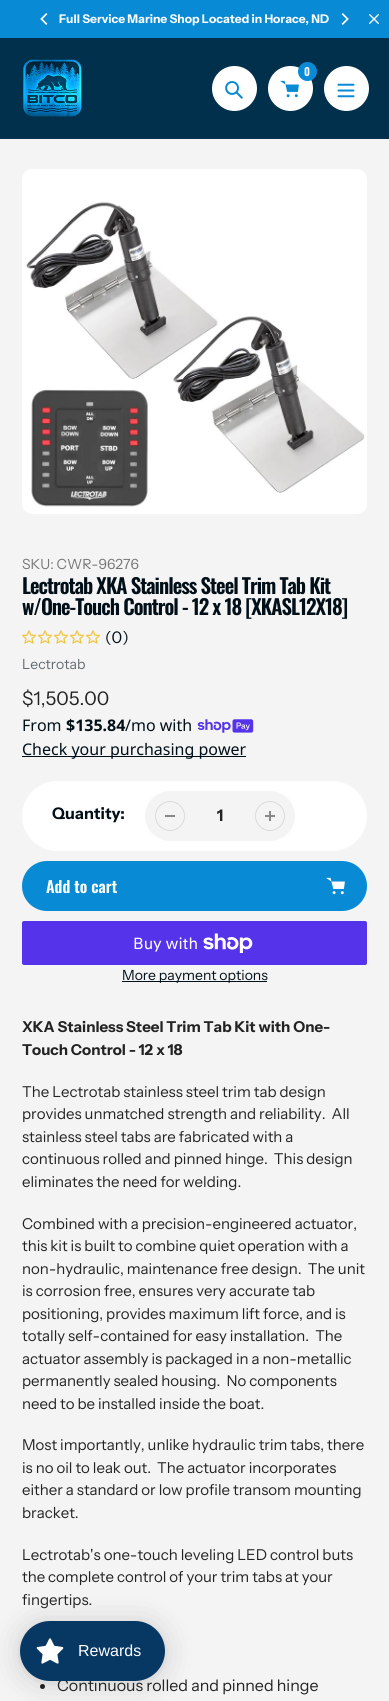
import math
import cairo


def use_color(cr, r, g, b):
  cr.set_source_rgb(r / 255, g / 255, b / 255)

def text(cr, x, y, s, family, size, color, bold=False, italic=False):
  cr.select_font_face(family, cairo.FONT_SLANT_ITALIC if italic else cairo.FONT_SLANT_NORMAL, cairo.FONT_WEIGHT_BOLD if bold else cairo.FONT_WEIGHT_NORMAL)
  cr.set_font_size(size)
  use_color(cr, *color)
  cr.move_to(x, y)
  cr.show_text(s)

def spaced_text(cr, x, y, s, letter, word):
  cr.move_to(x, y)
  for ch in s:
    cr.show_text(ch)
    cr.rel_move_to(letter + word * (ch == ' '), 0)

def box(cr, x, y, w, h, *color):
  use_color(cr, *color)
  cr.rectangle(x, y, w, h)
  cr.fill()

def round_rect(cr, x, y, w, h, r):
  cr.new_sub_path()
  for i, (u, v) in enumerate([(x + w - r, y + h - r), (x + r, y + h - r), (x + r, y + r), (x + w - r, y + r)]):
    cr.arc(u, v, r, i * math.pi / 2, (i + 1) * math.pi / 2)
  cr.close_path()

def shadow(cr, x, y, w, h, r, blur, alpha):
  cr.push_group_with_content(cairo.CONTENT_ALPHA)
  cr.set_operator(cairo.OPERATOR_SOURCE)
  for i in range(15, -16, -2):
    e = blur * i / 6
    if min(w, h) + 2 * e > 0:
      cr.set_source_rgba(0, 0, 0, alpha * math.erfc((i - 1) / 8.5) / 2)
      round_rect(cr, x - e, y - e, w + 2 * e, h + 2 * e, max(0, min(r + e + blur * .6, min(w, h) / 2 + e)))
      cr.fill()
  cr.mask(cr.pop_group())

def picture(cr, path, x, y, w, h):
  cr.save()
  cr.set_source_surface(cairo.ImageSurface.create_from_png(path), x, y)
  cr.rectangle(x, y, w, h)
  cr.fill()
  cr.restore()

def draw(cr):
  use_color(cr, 244, 244, 244)
  cr.paint()
  box(cr, 0, 0, 389, 38, 9, 138, 213)
  picture(cr, "img_01.png", 40, 13, 8, 12)
  picture(cr, "img_02.png", 341, 13, 8, 12)
  picture(cr, "img_03.png", 369, 14, 10, 10)
  box(cr, 0, 38, 389, 101, 0, 48, 75)
  picture(cr, "img_04.png", 23, 59, 59, 58)
  use_color(cr, 255, 255, 255)
  cr.arc(234.5, 88.5, 22.5, 0, 2 * math.pi)
  cr.fill()
  picture(cr, "img_05.png", 225, 81, 18, 18)
  cr.arc(290.5, 88.5, 22.5, 0, 2 * math.pi)
  cr.fill()
  picture(cr, "img_06.png", 280, 80, 19, 18)
  use_color(cr, 9, 138, 213)
  cr.arc(307.5, 71.5, 9.5, 0, 2 * math.pi)
  cr.fill()
  use_color(cr, 255, 255, 255)
  cr.arc(346.5, 88.5, 22.5, 0, 2 * math.pi)
  cr.fill()
  picture(cr, "img_07.png", 337, 83, 18, 15)
  picture(cr, "img_08.png", 22, 169, 345, 345)
  picture(cr, "img_09.png", 22, 630, 14, 14)
  picture(cr, "img_09.png", 38, 630, 14, 14)
  picture(cr, "img_09.png", 54, 630, 14, 14)
  picture(cr, "img_09.png", 70, 630, 14, 14)
  picture(cr, "img_09.png", 86, 630, 14, 14)
  picture(cr, "img_10.png", 197, 719, 57, 14)
  box(cr, 22, 756, 224, 1, 1, 15, 24)
  use_color(cr, 255, 255, 255)
  round_rect(cr, 22, 781, 345, 70, 35)
  cr.fill()
  use_color(cr, 244, 244, 244)
  round_rect(cr, 145, 791, 150, 50, 25)
  cr.fill()
  box(cr, 165, 815, 10, 2, 137, 137, 137)
  cr.arc(170, 816, 14.5, 0, 2 * math.pi)
  use_color(cr, 215, 219, 219)
  cr.set_line_width(1)
  cr.stroke()
  picture(cr, "img_11.png", 265, 811, 10, 10)
  cr.arc(270, 816, 14.5, 0, 2 * math.pi)
  cr.stroke()
  use_color(cr, 9, 138, 213)
  round_rect(cr, 22, 861, 345, 50, 25)
  cr.fill()
  picture(cr, "img_12.png", 326, 877, 19, 18)
  use_color(cr, 84, 51, 235)
  round_rect(cr, 22, 921, 345, 44, 2)
  cr.fill()
  picture(cr, "img_13.png", 203, 933, 50, 20)
  box(cr, 122, 981, 145, 1, 1, 15, 24)
  use_color(cr, 35, 35, 35)
  cr.arc(42.5, 1686.5, 2.5, 0, 2 * math.pi)
  cr.fill()
  use_color(cr, 0, 0, 0)
  shadow(cr, 20, 1623, 145, 60, 30, 15, 0.15)
  shadow(cr, 20, 1622, 145, 60, 30, 3, 0.05)
  text(cr, 59, 23, "Full Service Marine Shop Located in Horace, ND", "Instrument Sans", 12, (255, 255, 255), bold=True)
  text(cr, 304, 76, "0", "Oswald SemiBold", 11, (255, 255, 255))
  text(cr, 22, 569, "SKU: CWR-96276", "Instrument Sans", 14, (119, 119, 119))
  cr.select_font_face("Oswald SemiBold")
  cr.set_font_size(20.75)
  use_color(cr, 1, 15, 24)
  spaced_text(cr, 22, 594, "Lectrotab XKA Stainless Steel Trim Tab Kit", -1, 0)
  spaced_text(cr, 22, 615, "w/One-Touch Control - 12 x 18 [XKASL12X18]", -1, 0)
  text(cr, 105, 643, "(0)", "Instrument Sans", 16, (1, 15, 24))
  text(cr, 22, 669, "Lectrotab", "Instrument Sans", 14, (98, 107, 112))
  text(cr, 22, 705, "$1,505.00", "Instrument Sans", 18.75, (35, 35, 35))
  text(cr, 22, 731, "From", "Noto Sans", 16, (1, 15, 24))
  text(cr, 66, 731, "$135.84", "Noto Sans", 16, (1, 15, 24), bold=True)
  text(cr, 125, 731, "/mo with", "Noto Sans", 16, (1, 15, 24))
  text(cr, 22, 755, "Check your purchasing power", "Noto Sans", 16, (1, 15, 24))
  text(cr, 52, 819, "Quantity:", "Instrument Sans", 16, (1, 15, 24), bold=True)
  text(cr, 217, 821, "1", "Instrument Sans", 16, (35, 35, 35), bold=True)
  text(cr, 46, 893, "Add to cart", "Oswald SemiBold", 16, (255, 255, 255))
  text(cr, 133, 949, "Buy with", "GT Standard", 16, (255, 255, 255))
  text(cr, 122, 980, "More payment options", "Instrument Sans", 14, (1, 15, 24))
  text(cr, 22, 1032, "XKA Stainless Steel Trim Tab Kit with One-", "Instrument Sans", 15, (35, 35, 35), bold=True)
  text(cr, 22, 1055, "Touch Control - 12 x 18", "Instrument Sans", 15, (35, 35, 35), bold=True)
  text(cr, 22, 1097, "The Lectrotab stainless steel trim tab design", "Instrument Sans", 15, (35, 35, 35))
  text(cr, 22, 1119, "provides unmatched strength and reliability.  All", "Instrument Sans", 15, (35, 35, 35))
  text(cr, 22, 1142, "stainless steel tabs are fabricated with a", "Instrument Sans", 15, (35, 35, 35))
  text(cr, 22, 1164, "continuous rolled and pinned hinge.  This design", "Instrument Sans", 15, (35, 35, 35))
  text(cr, 22, 1187, "eliminates the need for welding.", "Instrument Sans", 15, (35, 35, 35))
  text(cr, 22, 1229, "Combined with a precision-engineered actuator,", "Instrument Sans", 15, (35, 35, 35))
  text(cr, 22, 1251, "this kit is built to combine quiet operation with a", "Instrument Sans", 15, (35, 35, 35))
  text(cr, 22, 1274, "non-hydraulic, maintenance free design.  The unit", "Instrument Sans", 15, (35, 35, 35))
  text(cr, 22, 1296, "is corrosion free, ensures very accurate tab", "Instrument Sans", 15, (35, 35, 35))
  text(cr, 22, 1319, "positioning, provides maximum lift force, and is", "Instrument Sans", 15, (35, 35, 35))
  text(cr, 22, 1341, "totally self-contained for easy installation.  The", "Instrument Sans", 15, (35, 35, 35))
  text(cr, 22, 1364, "actuator assembly is packaged in a non-metallic", "Instrument Sans", 15, (35, 35, 35))
  text(cr, 22, 1386, "permanently sealed housing.  No components", "Instrument Sans", 15, (35, 35, 35))
  text(cr, 22, 1409, "need to be installed inside the boat.", "Instrument Sans", 15, (35, 35, 35))
  text(cr, 22, 1450, "Most importantly, unlike hydraulic trim tabs, there", "Instrument Sans", 15, (35, 35, 35))
  text(cr, 22, 1473, "is no oil to leak out.  The actuator incorporates", "Instrument Sans", 15, (35, 35, 35))
  text(cr, 22, 1495, "either a standard or low profile transom mounting", "Instrument Sans", 15, (35, 35, 35))
  text(cr, 22, 1518, "bracket.", "Instrument Sans", 15, (35, 35, 35))
  text(cr, 22, 1560, "Lectrotab's one-touch leveling LED control buts", "Instrument Sans", 15, (35, 35, 35))
  text(cr, 22, 1582, "the complete control of your trim tabs at your", "Instrument Sans", 15, (35, 35, 35))
  text(cr, 22, 1605, "fingertips.", "Instrument Sans", 15, (35, 35, 35))
  text(cr, 57, 1691, "Continuous rolled and pinned hinge", "Instrument Sans", 16, (35, 35, 35))
  use_color(cr, 7, 55, 99)
  round_rect(cr, 20, 1621, 145, 60, 30)
  cr.fill()
  picture(cr, "img_14.png", 36, 1638, 28, 26)
  text(cr, 78, 1656, "Rewards", "Liberation Sans", 16, (255, 255, 255))


surface = cairo.ImageSurface(cairo.FORMAT_RGB24, 389, 1701)
cr = cairo.Context(surface)
options = cairo.FontOptions()
options.set_hint_metrics(cairo.HINT_METRICS_OFF)
options.set_hint_style(cairo.HINT_STYLE_NONE)
cr.set_font_options(options)
cr.set_miter_limit(4)
draw(cr)
surface.write_to_png("out.png")
